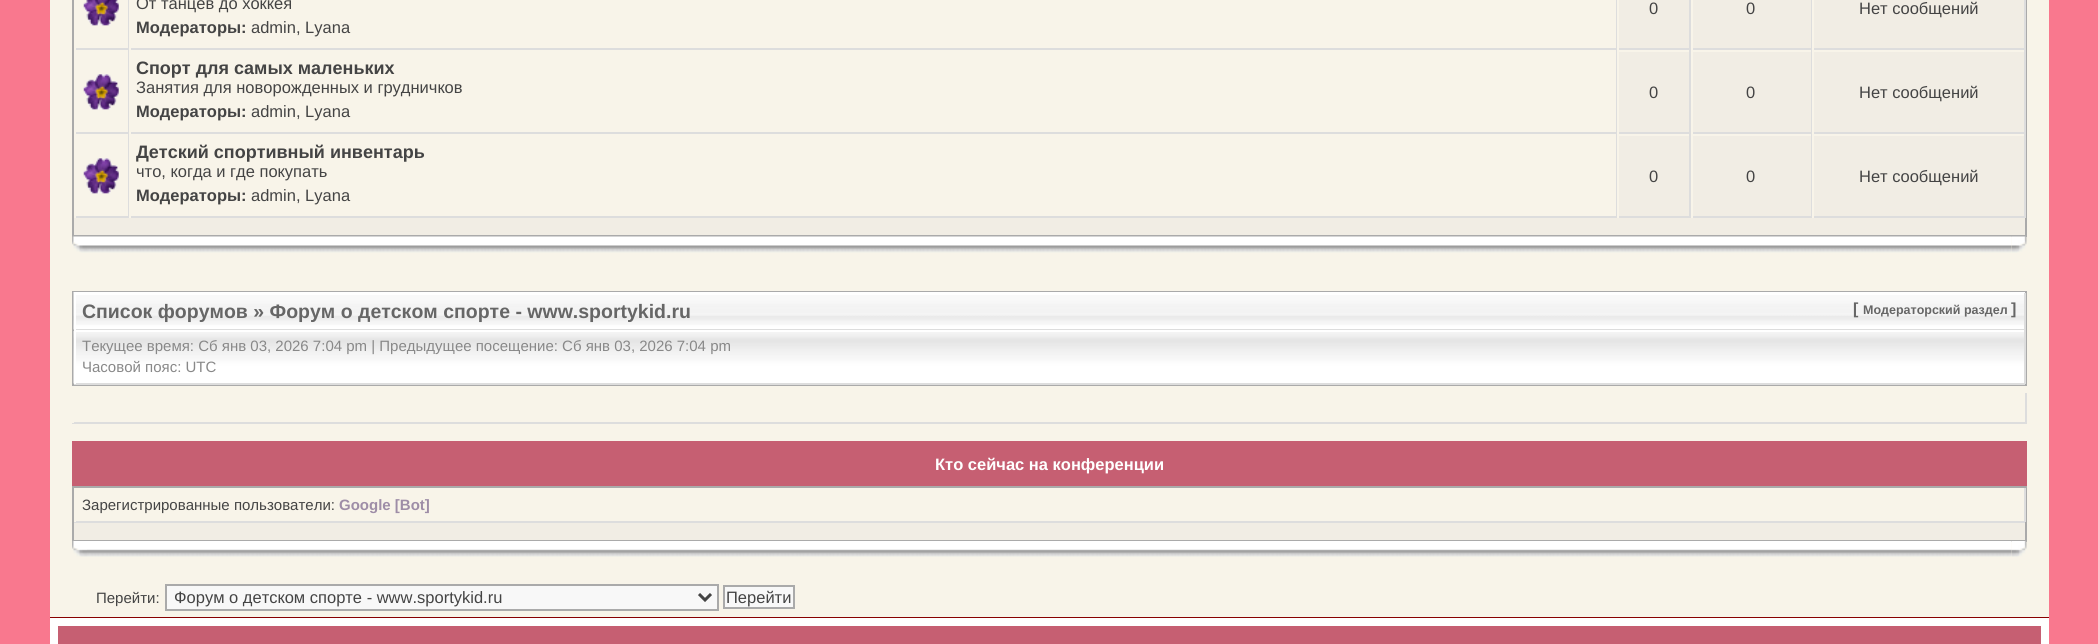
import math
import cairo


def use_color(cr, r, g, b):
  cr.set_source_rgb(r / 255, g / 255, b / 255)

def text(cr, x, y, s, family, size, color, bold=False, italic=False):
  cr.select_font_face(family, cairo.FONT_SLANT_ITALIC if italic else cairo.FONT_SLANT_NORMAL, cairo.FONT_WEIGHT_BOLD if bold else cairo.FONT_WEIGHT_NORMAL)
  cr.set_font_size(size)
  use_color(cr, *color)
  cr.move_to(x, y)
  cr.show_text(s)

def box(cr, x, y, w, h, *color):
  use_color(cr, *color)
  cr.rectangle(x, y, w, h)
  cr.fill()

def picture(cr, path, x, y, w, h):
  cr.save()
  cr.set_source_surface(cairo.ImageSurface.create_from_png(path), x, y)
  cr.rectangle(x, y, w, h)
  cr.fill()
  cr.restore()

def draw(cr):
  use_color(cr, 249, 120, 142)
  cr.paint()
  box(cr, 50, 0, 1999, 617, 248, 244, 233)
  use_color(cr, 241, 237, 228)
  cr.rectangle(73, -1, 1953, 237)
  cr.fill_preserve()
  use_color(cr, 170, 170, 170)
  cr.stroke()
  box(cr, 76, 0, 52, 48, 248, 244, 233)
  box(cr, 128, 0, 1, 218, 221, 221, 221)
  box(cr, 74, 48, 55, 2, 221, 221, 221)
  box(cr, 74, 0, 2, 50, 248, 244, 233)
  picture(cr, "img_01.png", 83, 0, 36, 26)
  box(cr, 131, 0, 1485, 48, 248, 244, 233)
  box(cr, 1616, 0, 1, 218, 221, 221, 221)
  box(cr, 129, 48, 1488, 2, 221, 221, 221)
  box(cr, 129, 0, 2, 50, 248, 244, 233)
  box(cr, 1689, 0, 2, 50, 221, 221, 221)
  box(cr, 1617, 48, 74, 2, 221, 221, 221)
  box(cr, 1617, 0, 2, 50, 248, 244, 233)
  box(cr, 1811, 0, 1, 50, 221, 221, 221)
  box(cr, 1691, 48, 121, 2, 221, 221, 221)
  box(cr, 1691, 0, 2, 50, 248, 244, 233)
  box(cr, 2024, 0, 2, 50, 221, 221, 221)
  box(cr, 1812, 48, 213, 2, 221, 221, 221)
  box(cr, 1812, 0, 2, 50, 248, 244, 233)
  box(cr, 76, 50, 52, 82, 248, 244, 233)
  box(cr, 74, 132, 1543, 2, 221, 221, 221)
  box(cr, 74, 50, 2, 84, 248, 244, 233)
  picture(cr, "img_02.png", 83, 74, 36, 36)
  box(cr, 131, 50, 1485, 82, 248, 244, 233)
  box(cr, 129, 50, 2, 84, 248, 244, 233)
  box(cr, 1617, 50, 408, 2, 248, 244, 233)
  box(cr, 1689, 50, 2, 84, 221, 221, 221)
  box(cr, 1617, 132, 74, 2, 221, 221, 221)
  box(cr, 1617, 50, 2, 84, 248, 244, 233)
  box(cr, 1811, 50, 1, 84, 221, 221, 221)
  box(cr, 1691, 132, 121, 2, 221, 221, 221)
  box(cr, 1691, 50, 2, 84, 248, 244, 233)
  box(cr, 2024, 50, 2, 84, 221, 221, 221)
  box(cr, 1812, 132, 213, 2, 221, 221, 221)
  box(cr, 1812, 50, 2, 84, 248, 244, 233)
  box(cr, 76, 134, 52, 82, 248, 244, 233)
  box(cr, 74, 216, 1543, 2, 221, 221, 221)
  box(cr, 74, 134, 2, 84, 248, 244, 233)
  picture(cr, "img_02.png", 83, 158, 36, 36)
  box(cr, 131, 134, 1485, 82, 248, 244, 233)
  box(cr, 129, 134, 2, 84, 248, 244, 233)
  box(cr, 1617, 134, 408, 2, 248, 244, 233)
  box(cr, 1689, 134, 2, 84, 221, 221, 221)
  box(cr, 1617, 216, 74, 2, 221, 221, 221)
  box(cr, 1617, 134, 2, 84, 248, 244, 233)
  box(cr, 1811, 134, 1, 84, 221, 221, 221)
  box(cr, 1691, 216, 121, 2, 221, 221, 221)
  box(cr, 1691, 134, 2, 84, 248, 244, 233)
  box(cr, 2024, 134, 2, 84, 221, 221, 221)
  box(cr, 1812, 216, 213, 2, 221, 221, 221)
  box(cr, 1812, 134, 2, 84, 248, 244, 233)
  picture(cr, "img_03.png", 72, 236, 15, 17)
  picture(cr, "img_04.png", 2011, 236, 16, 17)
  picture(cr, "img_05.png", 87, 236, 1925, 17)
  cr.rectangle(73, 292, 1953, 93)
  use_color(cr, 170, 170, 170)
  cr.stroke()
  picture(cr, "img_06.png", 73, 292, 1952, 38)
  box(cr, 74, 293, 1951, 2, 255, 255, 255)
  box(cr, 2024, 293, 2, 37, 221, 221, 221)
  box(cr, 74, 329, 1951, 1, 221, 221, 221)
  box(cr, 74, 293, 2, 37, 255, 255, 255)
  picture(cr, "img_07.png", 73, 331, 1951, 53)
  box(cr, 74, 330, 1951, 2, 255, 255, 255)
  box(cr, 2024, 330, 2, 54, 221, 221, 221)
  box(cr, 74, 383, 1951, 2, 221, 221, 221)
  box(cr, 74, 330, 2, 54, 255, 255, 255)
  box(cr, 2025, 393, 2, 30, 221, 221, 221)
  box(cr, 72, 422, 1955, 2, 221, 221, 221)
  box(cr, 72, 422, 2, 1, 248, 244, 233)
  box(cr, 72, 441, 1955, 45, 198, 95, 114)
  box(cr, 74, 523, 1951, 17, 241, 237, 228)
  cr.rectangle(73, 487, 1953, 54)
  use_color(cr, 170, 170, 170)
  cr.stroke()
  box(cr, 2024, 488, 2, 34, 221, 221, 221)
  box(cr, 74, 521, 1951, 2, 221, 221, 221)
  box(cr, 74, 521, 2, 1, 248, 244, 233)
  picture(cr, "img_08.png", 72, 541, 15, 16)
  picture(cr, "img_09.png", 2011, 541, 16, 16)
  picture(cr, "img_10.png", 87, 541, 1925, 16)
  use_color(cr, 248, 248, 248)
  cr.rectangle(166, 585, 552, 25)
  cr.fill_preserve()
  use_color(cr, 170, 170, 170)
  cr.stroke()
  cr.new_path()
  cr.move_to(699, 594)
  cr.line_to(705, 600)
  cr.line_to(711, 594)
  use_color(cr, 68, 68, 68)
  cr.set_line_width(3)
  cr.stroke()
  use_color(cr, 248, 248, 248)
  cr.rectangle(724, 586, 70, 22)
  cr.fill_preserve()
  use_color(cr, 170, 170, 170)
  cr.set_line_width(2)
  cr.stroke()
  box(cr, 50, 617, 1999, 1, 136, 0, 0)
  use_color(cr, 198, 95, 114)
  cr.rectangle(54, 622, 1991, 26)
  cr.fill_preserve()
  use_color(cr, 255, 255, 255)
  cr.set_line_width(8)
  cr.stroke()
  text(cr, 136, 9, "От танцев до хоккея", "Liberation Sans", 16.5, (68, 68, 68))
  text(cr, 136, 33, "Модераторы:", "Liberation Sans", 16.5, (68, 68, 68), bold=True)
  text(cr, 251, 33, "admin, Lyana", "Liberation Sans", 16.5, (68, 68, 68))
  text(cr, 1649, 14, "0", "Liberation Sans", 16.5, (68, 68, 68))
  text(cr, 1746, 14, "0", "Liberation Sans", 16.5, (68, 68, 68))
  text(cr, 1859, 14, "Нет сообщений", "Liberation Sans", 16.5, (68, 68, 68))
  text(cr, 136, 74, "Спорт для самых маленьких", "Liberation Sans", 18, (68, 68, 68), bold=True)
  text(cr, 136, 93, "Занятия для новорожденных и грудничков", "Liberation Sans", 16.5, (68, 68, 68))
  text(cr, 136, 117, "Модераторы:", "Liberation Sans", 16.5, (68, 68, 68), bold=True)
  text(cr, 251, 117, "admin, Lyana", "Liberation Sans", 16.5, (68, 68, 68))
  text(cr, 1649, 98, "0", "Liberation Sans", 16.5, (68, 68, 68))
  text(cr, 1746, 98, "0", "Liberation Sans", 16.5, (68, 68, 68))
  text(cr, 1859, 98, "Нет сообщений", "Liberation Sans", 16.5, (68, 68, 68))
  text(cr, 136, 158, "Детский спортивный инвентарь", "Liberation Sans", 18, (68, 68, 68), bold=True)
  text(cr, 136, 177, "что, когда и где покупать", "Liberation Sans", 16.5, (68, 68, 68))
  text(cr, 136, 201, "Модераторы:", "Liberation Sans", 16.5, (68, 68, 68), bold=True)
  text(cr, 251, 201, "admin, Lyana", "Liberation Sans", 16.5, (68, 68, 68))
  text(cr, 1649, 182, "0", "Liberation Sans", 16.5, (68, 68, 68))
  text(cr, 1746, 182, "0", "Liberation Sans", 16.5, (68, 68, 68))
  text(cr, 1859, 182, "Нет сообщений", "Liberation Sans", 16.5, (68, 68, 68))
  text(cr, 82, 318, "Список форумов » Форум о детском спорте - www.sportykid.ru", "Liberation Sans", 19.5, (102, 102, 102), bold=True)
  text(cr, 1853, 314, "[", "Liberation Sans", 16, (102, 102, 102), bold=True)
  text(cr, 1863, 314, "Модераторский раздел", "Liberation Sans", 12.5, (102, 102, 102), bold=True)
  text(cr, 2011, 314, "]", "Liberation Sans", 16, (102, 102, 102), bold=True)
  text(cr, 82, 351, "Текущее время: Сб янв 03, 2026 7:04 pm | Предыдущее посещение: Сб янв 03, 2026 7:04 pm", "Liberation Sans", 15, (136, 136, 136))
  text(cr, 82, 372, "Часовой пояс: UTC", "Liberation Sans", 15, (136, 136, 136))
  text(cr, 935, 470, "Кто сейчас на конференции", "Liberation Sans", 16.5, (255, 255, 255), bold=True)
  text(cr, 82, 510, "Зарегистрированные пользователи:", "Liberation Sans", 15, (68, 68, 68))
  text(cr, 339, 510, "Google [Bot]", "Liberation Sans", 15, (158, 141, 167), bold=True)
  text(cr, 96, 603, "Перейти:", "Liberation Sans", 15, (68, 68, 68))
  text(cr, 174, 603, "Форум о детском спорте - www.sportykid.ru", "Liberation Sans", 16.5, (68, 68, 68))
  text(cr, 726, 603, "Перейти", "Liberation Sans", 16.5, (68, 68, 68))


surface = cairo.ImageSurface(cairo.FORMAT_RGB24, 2098, 644)
cr = cairo.Context(surface)
options = cairo.FontOptions()
options.set_hint_metrics(cairo.HINT_METRICS_OFF)
options.set_hint_style(cairo.HINT_STYLE_NONE)
cr.set_font_options(options)
cr.set_miter_limit(4)
draw(cr)
surface.write_to_png("out.png")
